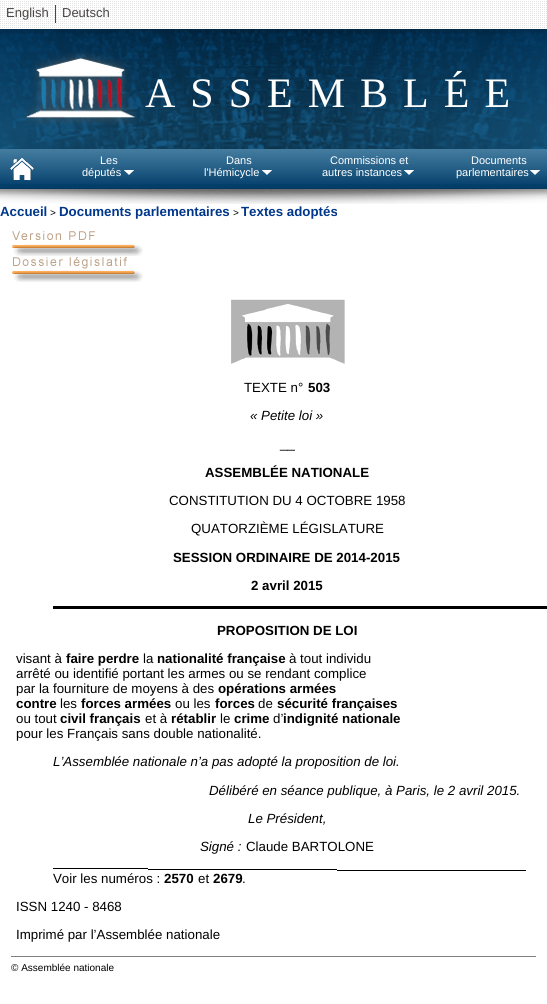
import math
import cairo


def use_color(cr, r, g, b):
  cr.set_source_rgb(r / 255, g / 255, b / 255)

def text(cr, x, y, s, family, size, color, bold=False, italic=False):
  cr.select_font_face(family, cairo.FONT_SLANT_ITALIC if italic else cairo.FONT_SLANT_NORMAL, cairo.FONT_WEIGHT_BOLD if bold else cairo.FONT_WEIGHT_NORMAL)
  cr.set_font_size(size)
  use_color(cr, *color)
  cr.move_to(x, y)
  cr.show_text(s)

def spaced_text(cr, x, y, s, letter, word):
  cr.move_to(x, y)
  for ch in s:
    cr.show_text(ch)
    cr.rel_move_to(letter + word * (ch == ' '), 0)

def box(cr, x, y, w, h, *color):
  use_color(cr, *color)
  cr.rectangle(x, y, w, h)
  cr.fill()

def picture(cr, path, x, y, w, h):
  cr.save()
  cr.set_source_surface(cairo.ImageSurface.create_from_png(path), x, y)
  cr.rectangle(x, y, w, h)
  cr.fill()
  cr.restore()

def draw(cr):
  use_color(cr, 255, 255, 255)
  cr.paint()
  picture(cr, "img_01.png", 0, 1, 547, 28)
  picture(cr, "img_02.png", 0, 29, 547, 120)
  box(cr, 55, 5, 1, 18, 74, 70, 70)
  picture(cr, "img_03.png", 25, 52, 111, 73)
  picture(cr, "img_11.png", 0, 149, 547, 40)
  picture(cr, "img_04.png", 0, 149, 547, 35)
  picture(cr, "img_05.png", 10, 158, 24, 23)
  picture(cr, "img_06.png", 124, 170, 10, 5)
  picture(cr, "img_07.png", 262, 170, 10, 5)
  picture(cr, "img_08.png", 404, 170, 10, 5)
  picture(cr, "img_09.png", 530, 170, 10, 5)
  picture(cr, "img_10.png", 0, 29, 547, 5)
  picture(cr, "img_13.png", 0, 189, 547, 15)
  picture(cr, "img_12.png", 0, 188, 547, 7)
  picture(cr, "img_14.png", 12, 231, 131, 25)
  picture(cr, "img_15.png", 12, 257, 131, 25)
  picture(cr, "img_16.png", 231, 299, 114, 65)
  box(cr, 53, 606, 494, 3, 0, 0, 0)
  picture(cr, "img_17.png", 53, 868, 473, 3)
  box(cr, 11, 956, 525, 1, 128, 128, 128)
  text(cr, 6, 17, "English", "Liberation Sans", 13, (74, 70, 70))
  text(cr, 62, 17, "Deutsch", "Liberation Sans", 13, (74, 70, 70))
  cr.select_font_face("Liberation Serif")
  cr.set_font_size(42)
  use_color(cr, 255, 255, 255)
  spaced_text(cr, 145, 107, "ASSEMBLÉE", 15, 0)
  text(cr, 100, 164, "Les", "Liberation Sans", 11, (255, 255, 255))
  text(cr, 82, 176, "députés", "Liberation Sans", 11, (255, 255, 255))
  text(cr, 226, 164, "Dans", "Liberation Sans", 11, (255, 255, 255))
  text(cr, 204, 176, "l'Hémicycle", "Liberation Sans", 11, (255, 255, 255))
  text(cr, 330, 164, "Commissions et", "Liberation Sans", 11, (255, 255, 255))
  text(cr, 322, 176, "autres instances", "Liberation Sans", 11, (255, 255, 255))
  text(cr, 471, 164, "Documents", "Liberation Sans", 11, (255, 255, 255))
  text(cr, 456, 176, "parlementaires", "Liberation Sans", 11, (255, 255, 255))
  text(cr, 0, 216, "Accueil", "Liberation Sans", 13.3, (0, 55, 139), bold=True)
  text(cr, 50, 216, ">", "Liberation Sans", 10, (0, 0, 0))
  text(cr, 59, 216, "Documents parlementaires", "Liberation Sans", 13.3, (0, 55, 139), bold=True)
  text(cr, 233, 216, ">", "Liberation Sans", 10, (0, 0, 0))
  text(cr, 241, 216, "Textes adoptés", "Liberation Sans", 13.3, (0, 55, 139), bold=True)
  text(cr, 244, 392, "TEXTE n°", "Liberation Sans", 13.3, (0, 0, 0))
  text(cr, 308, 392, "503", "Liberation Sans", 13.3, (0, 0, 0), bold=True)
  text(cr, 250, 420, "« Petite loi »", "Liberation Sans", 13.3, (0, 0, 0), italic=True)
  text(cr, 280, 448, "__", "Liberation Sans", 13.3, (0, 0, 0))
  text(cr, 205, 477, "ASSEMBLÉE NATIONALE", "Liberation Sans", 13.3, (0, 0, 0), bold=True)
  text(cr, 169, 505, "CONSTITUTION DU 4 OCTOBRE 1958", "Liberation Sans", 13.3, (0, 0, 0))
  text(cr, 191, 533, "QUATORZIÈME LÉGISLATURE", "Liberation Sans", 13.3, (0, 0, 0))
  text(cr, 173, 562, "SESSION ORDINAIRE DE 2014-2015", "Liberation Sans", 13.3, (0, 0, 0), bold=True)
  text(cr, 251, 590, "2 avril 2015", "Liberation Sans", 13.3, (0, 0, 0), bold=True)
  text(cr, 217, 635, "PROPOSITION DE LOI", "Liberation Sans", 13.3, (0, 0, 0), bold=True)
  text(cr, 16, 663, "visant à", "Liberation Sans", 13.3, (0, 0, 0))
  text(cr, 66, 663, "faire perdre", "Liberation Sans", 13.3, (0, 0, 0), bold=True)
  text(cr, 143, 663, "la", "Liberation Sans", 13.3, (0, 0, 0))
  text(cr, 157, 663, "nationalité française", "Liberation Sans", 13.3, (0, 0, 0), bold=True)
  text(cr, 289, 663, "à tout individu", "Liberation Sans", 13.3, (0, 0, 0))
  text(cr, 16, 678, "arrêté ou identifié portant les armes ou se rendant complice", "Liberation Sans", 13.3, (0, 0, 0))
  text(cr, 16, 693, "par la fourniture de moyens à des", "Liberation Sans", 13.3, (0, 0, 0))
  text(cr, 218, 693, "opérations armées", "Liberation Sans", 13.3, (0, 0, 0), bold=True)
  text(cr, 16, 708, "contre", "Liberation Sans", 13.3, (0, 0, 0), bold=True)
  text(cr, 60, 708, "les", "Liberation Sans", 13.3, (0, 0, 0))
  text(cr, 81, 708, "forces armées", "Liberation Sans", 13.3, (0, 0, 0), bold=True)
  text(cr, 175, 708, "ou les", "Liberation Sans", 13.3, (0, 0, 0))
  text(cr, 215, 708, "forces", "Liberation Sans", 13.3, (0, 0, 0), bold=True)
  text(cr, 258, 708, "de", "Liberation Sans", 13.3, (0, 0, 0))
  text(cr, 277, 708, "sécurité françaises", "Liberation Sans", 13.3, (0, 0, 0), bold=True)
  text(cr, 16, 723, "ou tout", "Liberation Sans", 13.3, (0, 0, 0))
  text(cr, 60, 723, "civil français", "Liberation Sans", 13.3, (0, 0, 0), bold=True)
  text(cr, 145, 723, "et à", "Liberation Sans", 13.3, (0, 0, 0))
  text(cr, 171, 723, "rétablir", "Liberation Sans", 13.3, (0, 0, 0), bold=True)
  text(cr, 220, 723, "le", "Liberation Sans", 13.3, (0, 0, 0))
  text(cr, 234, 723, "crime", "Liberation Sans", 13.3, (0, 0, 0), bold=True)
  text(cr, 273, 723, "d’", "Liberation Sans", 13.3, (0, 0, 0))
  text(cr, 283, 723, "indignité nationale", "Liberation Sans", 13.3, (0, 0, 0), bold=True)
  text(cr, 16, 738, "pour les Français sans double nationalité.", "Liberation Sans", 13.3, (0, 0, 0))
  text(cr, 53, 766, "L’Assemblée nationale n’a pas adopté la proposition de loi.", "Liberation Sans", 13.3, (0, 0, 0), italic=True)
  text(cr, 209, 795, "Délibéré en séance publique, à Paris, le 2 avril 2015.", "Liberation Sans", 13.3, (0, 0, 0), italic=True)
  text(cr, 248, 823, "Le Président,", "Liberation Sans", 13.3, (0, 0, 0), italic=True)
  text(cr, 200, 851, "Signé :", "Liberation Sans", 13.3, (0, 0, 0), italic=True)
  text(cr, 246, 851, "Claude BARTOLONE", "Liberation Sans", 13.3, (0, 0, 0))
  text(cr, 53, 883, "Voir les numéros :", "Liberation Sans", 13.3, (0, 0, 0))
  text(cr, 164, 883, "2570", "Liberation Sans", 13.3, (0, 0, 0), bold=True)
  text(cr, 198, 883, "et", "Liberation Sans", 13.3, (0, 0, 0))
  text(cr, 213, 883, "2679", "Liberation Sans", 13.3, (0, 0, 0), bold=True)
  text(cr, 242, 883, ".", "Liberation Sans", 13.3, (0, 0, 0))
  text(cr, 16, 911, "ISSN 1240 - 8468", "Liberation Sans", 13.3, (0, 0, 0))
  text(cr, 16, 939, "Imprimé par l’Assemblée nationale", "Liberation Sans", 13.3, (0, 0, 0))
  text(cr, 11, 971, "© Assemblée nationale", "Liberation Sans", 10, (0, 0, 0))


surface = cairo.ImageSurface(cairo.FORMAT_RGB24, 547, 1004)
cr = cairo.Context(surface)
options = cairo.FontOptions()
options.set_hint_metrics(cairo.HINT_METRICS_OFF)
options.set_hint_style(cairo.HINT_STYLE_NONE)
cr.set_font_options(options)
cr.set_miter_limit(4)
draw(cr)
surface.write_to_png("out.png")
